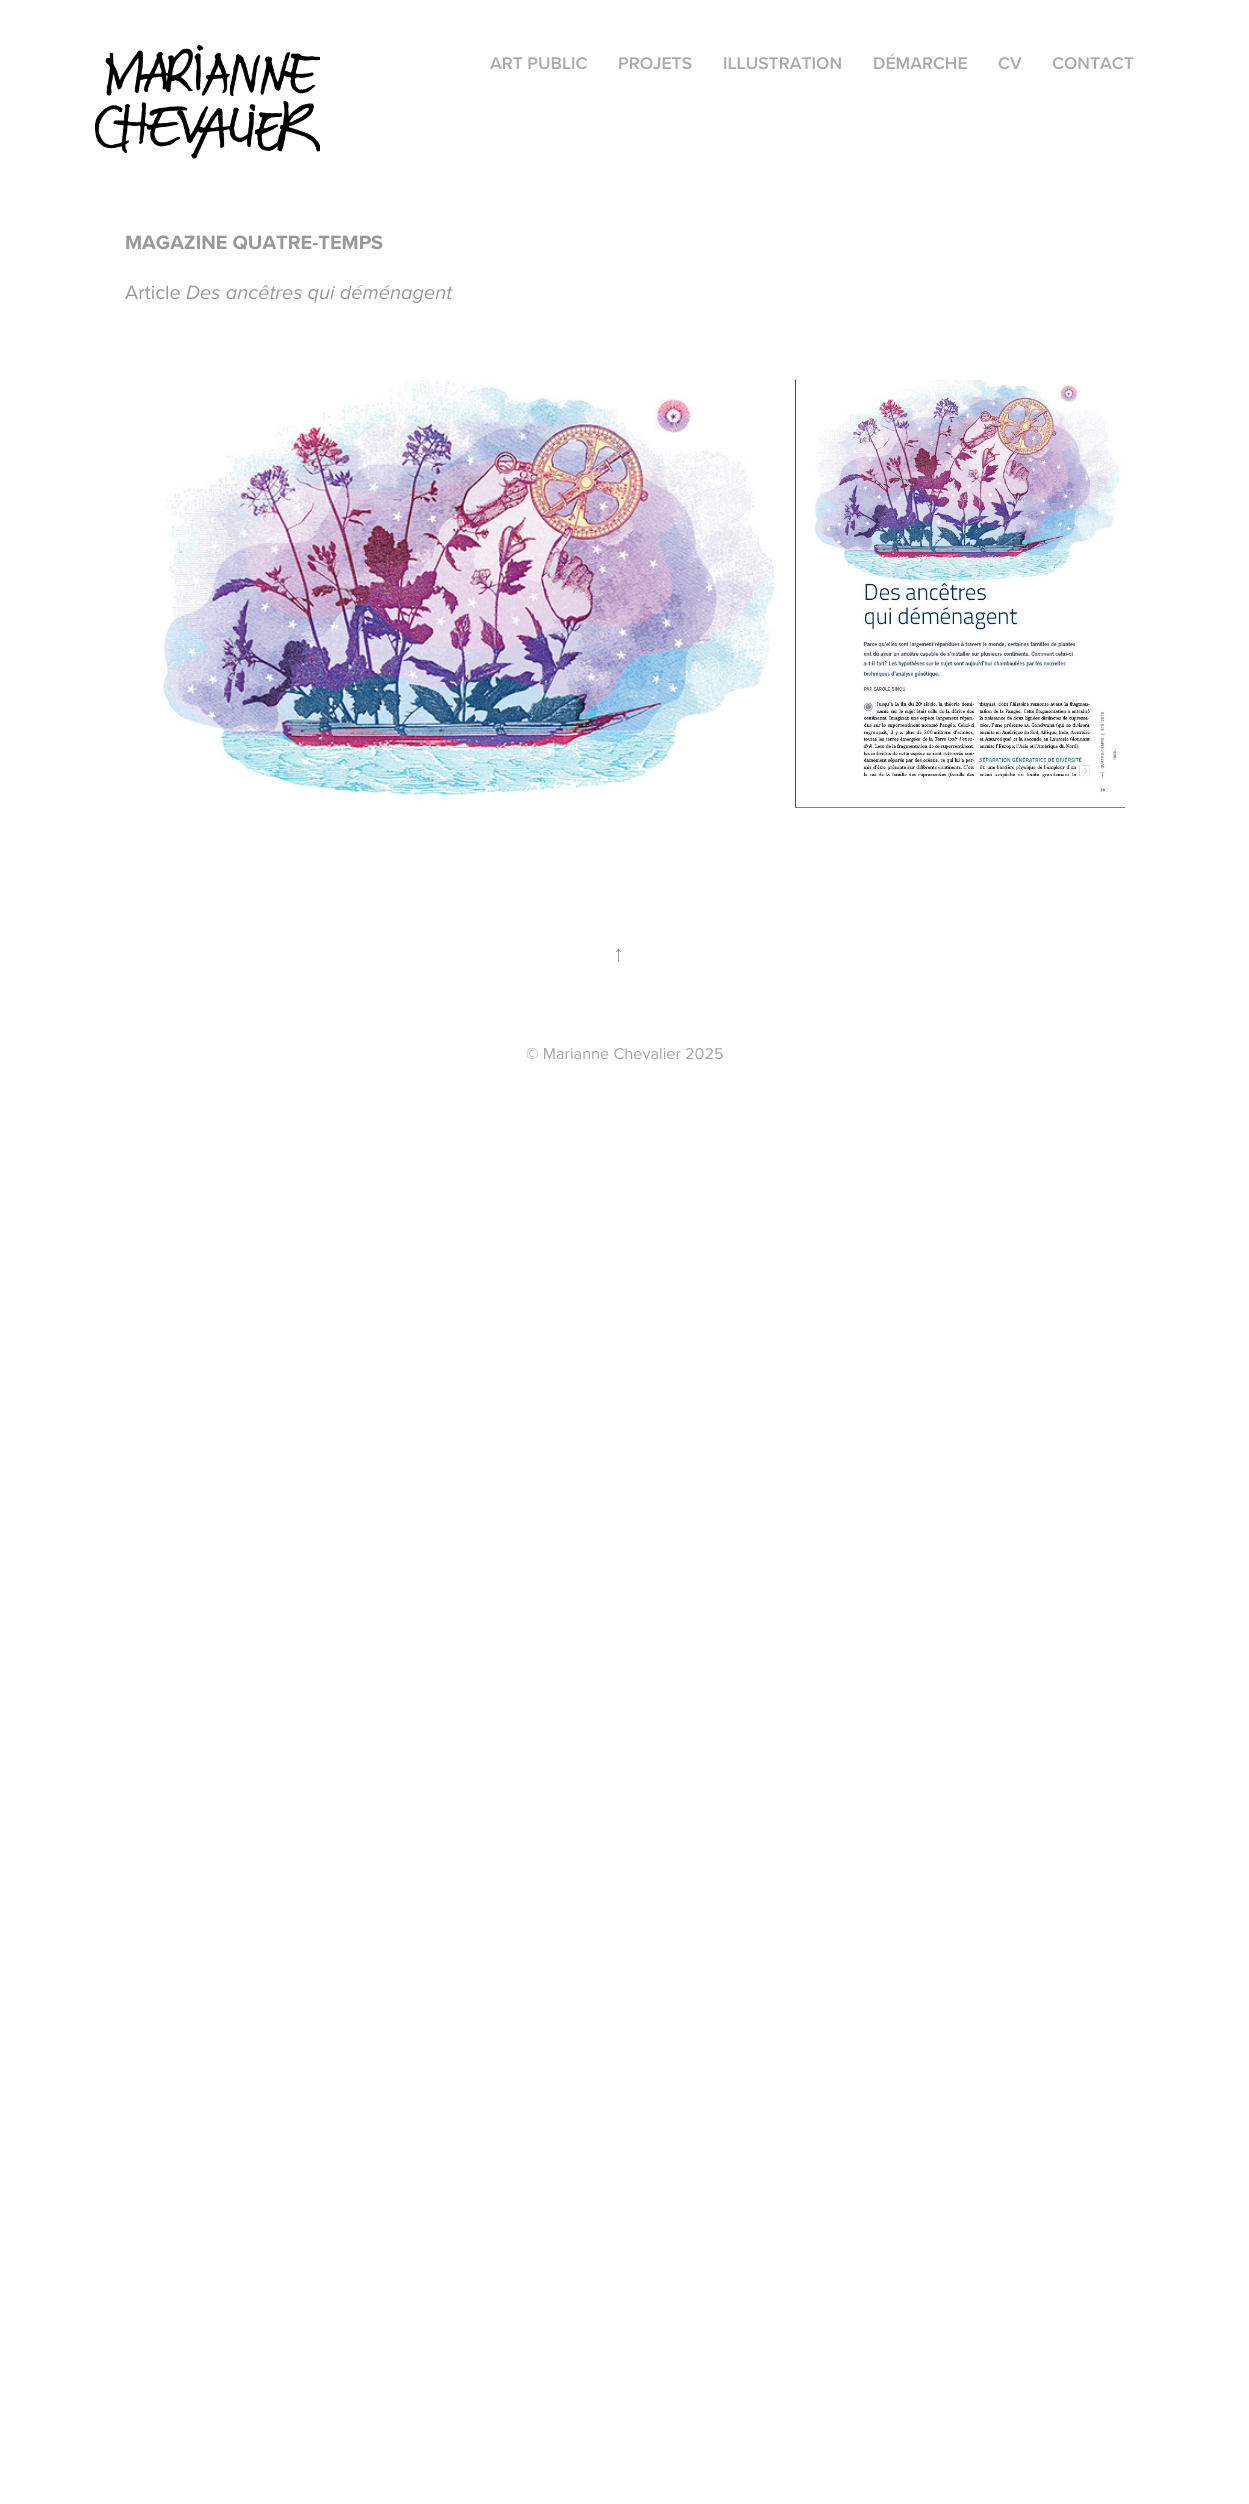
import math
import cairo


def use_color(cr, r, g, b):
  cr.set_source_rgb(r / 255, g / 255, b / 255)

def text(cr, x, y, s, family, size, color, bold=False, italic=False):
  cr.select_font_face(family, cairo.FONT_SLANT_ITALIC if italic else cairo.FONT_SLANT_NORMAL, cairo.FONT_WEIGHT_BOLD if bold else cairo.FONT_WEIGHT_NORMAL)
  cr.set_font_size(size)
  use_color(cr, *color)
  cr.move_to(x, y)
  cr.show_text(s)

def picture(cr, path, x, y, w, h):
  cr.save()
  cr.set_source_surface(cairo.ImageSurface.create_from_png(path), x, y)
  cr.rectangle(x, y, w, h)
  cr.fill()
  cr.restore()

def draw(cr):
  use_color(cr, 255, 255, 255)
  cr.paint()
  picture(cr, "img_01.png", 95, 45, 225, 114)
  picture(cr, "img_02.png", 160, 380, 616, 416)
  picture(cr, "img_03.png", 795, 380, 330, 428)
  text(cr, 490, 69, "ART PUBLIC", "Proxima Nova SemiBold", 17.5, (170, 170, 170))
  text(cr, 618, 69, "PROJETS", "Proxima Nova SemiBold", 17.5, (170, 170, 170))
  text(cr, 723, 69, "ILLUSTRATION", "Proxima Nova SemiBold", 17.5, (170, 170, 170))
  text(cr, 873, 69, "DÉMARCHE", "Proxima Nova SemiBold", 17.5, (170, 170, 170))
  text(cr, 998, 69, "CV", "Proxima Nova SemiBold", 17.5, (170, 170, 170))
  text(cr, 1052, 69, "CONTACT", "Proxima Nova SemiBold", 17.5, (170, 170, 170))
  text(cr, 125, 249, "MAGAZINE QUATRE-TEMPS", "Proxima Nova", 20, (153, 153, 153), bold=True)
  text(cr, 125, 299, "Article", "Proxima Nova", 20, (153, 153, 153))
  text(cr, 186, 299, "Des ancêtres qui déménagent", "Proxima Nova", 20, (153, 153, 153), italic=True)
  text(cr, 613, 961, "↑", "Liberation Serif", 22, (153, 153, 153))
  text(cr, 526, 1059, "© Marianne Chevalier 2025", "Proxima Nova", 16.25, (164, 164, 164))


surface = cairo.ImageSurface(cairo.FORMAT_RGB24, 1249, 2504)
cr = cairo.Context(surface)
options = cairo.FontOptions()
options.set_hint_metrics(cairo.HINT_METRICS_OFF)
options.set_hint_style(cairo.HINT_STYLE_NONE)
cr.set_font_options(options)
cr.set_miter_limit(4)
draw(cr)
surface.write_to_png("out.png")
